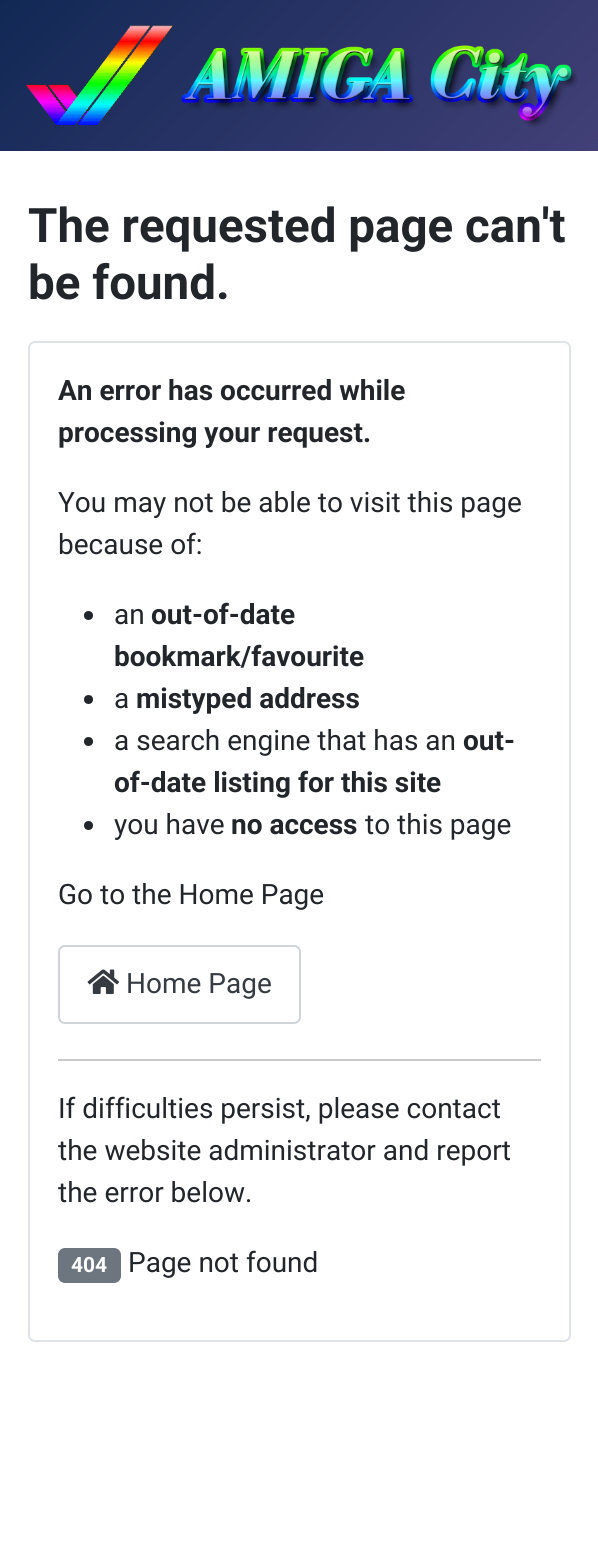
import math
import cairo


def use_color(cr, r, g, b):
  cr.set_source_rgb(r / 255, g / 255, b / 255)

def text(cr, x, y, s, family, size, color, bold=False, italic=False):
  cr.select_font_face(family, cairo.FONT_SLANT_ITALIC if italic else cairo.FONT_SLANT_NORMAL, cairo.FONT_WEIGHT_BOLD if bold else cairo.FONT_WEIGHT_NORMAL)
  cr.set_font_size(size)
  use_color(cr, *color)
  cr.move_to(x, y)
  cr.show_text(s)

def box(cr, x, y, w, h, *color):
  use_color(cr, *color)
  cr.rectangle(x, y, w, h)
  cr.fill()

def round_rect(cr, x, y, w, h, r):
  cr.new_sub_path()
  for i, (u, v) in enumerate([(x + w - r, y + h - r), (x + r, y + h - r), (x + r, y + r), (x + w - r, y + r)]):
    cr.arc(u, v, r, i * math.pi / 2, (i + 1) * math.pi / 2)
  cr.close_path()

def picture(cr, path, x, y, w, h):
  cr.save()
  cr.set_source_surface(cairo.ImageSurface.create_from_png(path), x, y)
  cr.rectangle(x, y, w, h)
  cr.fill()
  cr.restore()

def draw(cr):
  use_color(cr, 255, 255, 255)
  cr.paint()
  gradient = cairo.LinearGradient(112, -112, 487, 263)
  gradient.add_color_stop_rgba(0, 0.067, 0.157, 0.333, 1)
  gradient.add_color_stop_rgba(1, 0.259, 0.251, 0.467, 1)
  cr.set_source(gradient)
  cr.rectangle(0, 0, 598, 151)
  cr.fill()
  picture(cr, "img_01.png", 26, 25, 552, 102)
  round_rect(cr, 29, 342, 541, 999, 6)
  use_color(cr, 223, 227, 231)
  cr.stroke()
  use_color(cr, 34, 38, 42)
  cr.arc(88.5, 615.5, 4.5, 0, 2 * math.pi)
  cr.fill()
  cr.arc(88.5, 699.5, 4.5, 0, 2 * math.pi)
  cr.fill()
  cr.arc(88.5, 741.5, 4.5, 0, 2 * math.pi)
  cr.fill()
  cr.arc(88.5, 825.5, 4.5, 0, 2 * math.pi)
  cr.fill()
  round_rect(cr, 59, 946, 241, 77, 6)
  use_color(cr, 206, 212, 218)
  cr.stroke()
  picture(cr, "img_02.png", 87, 969, 32, 25)
  box(cr, 58, 1059, 483, 2, 200, 201, 202)
  use_color(cr, 109, 117, 126)
  round_rect(cr, 58, 1248, 63, 35, 7)
  cr.fill()
  text(cr, 28, 242, "The requested page can't", "Roboto", 47.5, (34, 38, 42), bold=True)
  text(cr, 28, 299, "be found.", "Roboto", 47.5, (34, 38, 42), bold=True)
  text(cr, 58, 400, "An error has occurred while", "Roboto", 28, (34, 38, 42), bold=True)
  text(cr, 58, 442, "processing your request.", "Roboto", 28, (34, 38, 42), bold=True)
  text(cr, 58, 512, "You may not be able to visit this page", "Roboto", 28, (34, 38, 42))
  text(cr, 58, 554, "because of:", "Roboto", 28, (34, 38, 42))
  text(cr, 114, 624, "an", "Roboto", 28, (34, 38, 42))
  text(cr, 151, 624, "out-of-date", "Roboto", 28, (34, 38, 42), bold=True)
  text(cr, 114, 666, "bookmark/favourite", "Roboto", 28, (34, 38, 42), bold=True)
  text(cr, 114, 708, "a", "Roboto", 28, (34, 38, 42))
  text(cr, 136, 708, "mistyped address", "Roboto", 28, (34, 38, 42), bold=True)
  text(cr, 114, 750, "a search engine that has an", "Roboto", 28, (34, 38, 42))
  text(cr, 463, 750, "out-", "Roboto", 28, (34, 38, 42), bold=True)
  text(cr, 114, 792, "of-date listing for this site", "Roboto", 28, (34, 38, 42), bold=True)
  text(cr, 114, 834, "you have", "Roboto", 28, (34, 38, 42))
  text(cr, 231, 834, "no access", "Roboto", 28, (34, 38, 42), bold=True)
  text(cr, 365, 834, "to this page", "Roboto", 28, (34, 38, 42))
  text(cr, 58, 904, "Go to the Home Page", "Roboto", 28, (34, 38, 42))
  text(cr, 126, 993, "Home Page", "Roboto", 28, (53, 59, 65))
  text(cr, 58, 1118, "If difficulties persist, please contact", "Roboto", 28, (34, 38, 42))
  text(cr, 58, 1160, "the website administrator and report", "Roboto", 28, (34, 38, 42))
  text(cr, 58, 1202, "the error below.", "Roboto", 28, (34, 38, 42))
  text(cr, 71, 1272, "404", "Roboto", 21, (255, 255, 255), bold=True)
  text(cr, 128, 1272, "Page not found", "Roboto", 28, (34, 38, 42))


surface = cairo.ImageSurface(cairo.FORMAT_RGB24, 598, 1566)
cr = cairo.Context(surface)
options = cairo.FontOptions()
options.set_hint_metrics(cairo.HINT_METRICS_OFF)
options.set_hint_style(cairo.HINT_STYLE_NONE)
cr.set_font_options(options)
cr.set_miter_limit(4)
draw(cr)
surface.write_to_png("out.png")
